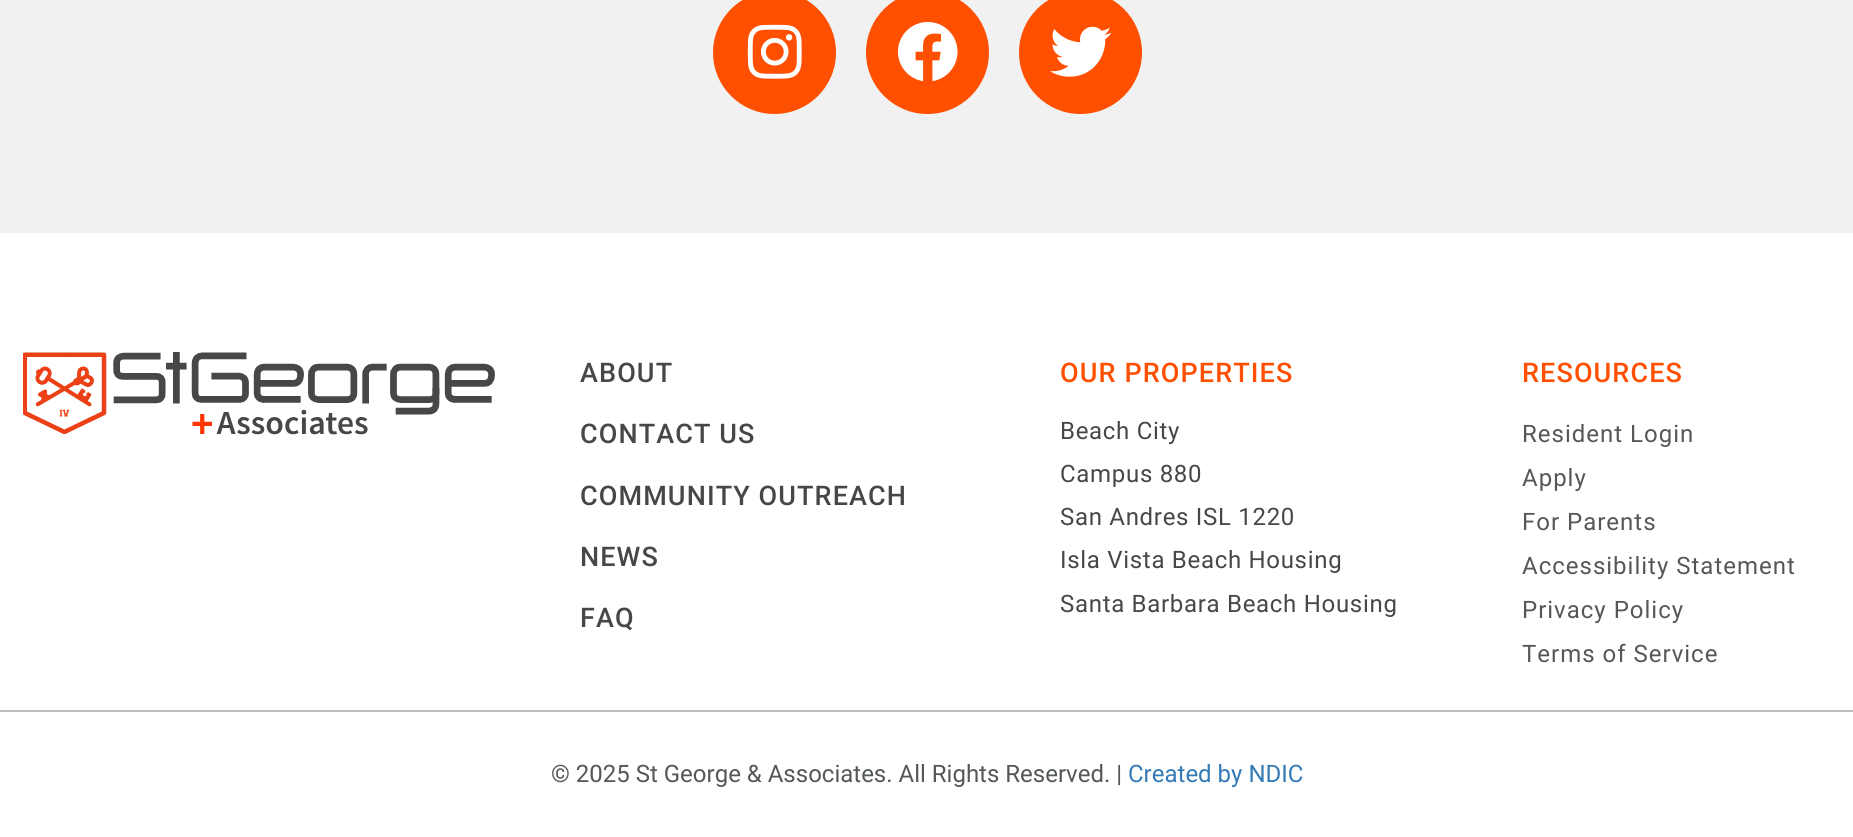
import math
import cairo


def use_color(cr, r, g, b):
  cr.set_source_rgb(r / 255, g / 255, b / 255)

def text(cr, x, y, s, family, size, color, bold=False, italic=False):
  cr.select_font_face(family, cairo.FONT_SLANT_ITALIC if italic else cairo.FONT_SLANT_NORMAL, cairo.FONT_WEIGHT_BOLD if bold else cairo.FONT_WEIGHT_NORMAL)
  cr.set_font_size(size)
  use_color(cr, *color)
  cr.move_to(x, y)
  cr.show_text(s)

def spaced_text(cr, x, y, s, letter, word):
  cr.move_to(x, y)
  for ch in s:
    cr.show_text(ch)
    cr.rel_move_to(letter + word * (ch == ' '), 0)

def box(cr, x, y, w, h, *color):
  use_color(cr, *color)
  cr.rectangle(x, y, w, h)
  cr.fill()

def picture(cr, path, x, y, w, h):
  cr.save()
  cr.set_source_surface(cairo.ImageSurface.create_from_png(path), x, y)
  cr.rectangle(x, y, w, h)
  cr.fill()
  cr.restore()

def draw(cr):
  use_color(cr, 255, 255, 255)
  cr.paint()
  box(cr, 0, 0, 1853, 233, 241, 241, 241)
  use_color(cr, 254, 80, 0)
  cr.arc(774.5, 52.5, 61.5, 0, 2 * math.pi)
  cr.fill()
  picture(cr, "img_01.png", 747, 24, 55, 55)
  cr.arc(927.5, 52.5, 61.5, 0, 2 * math.pi)
  cr.fill()
  picture(cr, "img_02.png", 897, 22, 61, 60)
  cr.arc(1080.5, 52.5, 61.5, 0, 2 * math.pi)
  cr.fill()
  picture(cr, "img_03.png", 1050, 26, 62, 51)
  picture(cr, "img_04.png", 23, 352, 472, 83)
  box(cr, 0, 710, 1853, 2, 190, 191, 191)
  cr.select_font_face("Roboto Medium")
  cr.set_font_size(27)
  use_color(cr, 70, 71, 73)
  spaced_text(cr, 580, 382, "ABOUT", 1.1, 0)
  spaced_text(cr, 580, 443, "CONTACT US", 1.1, 0)
  spaced_text(cr, 580, 505, "COMMUNITY OUTREACH", 1.1, 0)
  spaced_text(cr, 580, 566, "NEWS", 1.1, 0)
  spaced_text(cr, 580, 627, "FAQ", 1.1, 0)
  use_color(cr, 254, 80, 0)
  spaced_text(cr, 1060, 382, "OUR PROPERTIES", 1.1, 0)
  cr.select_font_face("Roboto")
  cr.set_font_size(24)
  use_color(cr, 70, 71, 73)
  spaced_text(cr, 1060, 439, "Beach City", 0.7, 0)
  spaced_text(cr, 1060, 482, "Campus 880", 0.7, 0)
  spaced_text(cr, 1060, 525, "San Andres ISL 1220", 0.7, 0)
  spaced_text(cr, 1060, 568, "Isla Vista Beach Housing", 0.7, 0)
  spaced_text(cr, 1060, 612, "Santa Barbara Beach Housing", 0.7, 0)
  cr.select_font_face("Roboto Medium")
  cr.set_font_size(27)
  use_color(cr, 254, 80, 0)
  spaced_text(cr, 1522, 382, "RESOURCES", 1.1, 0)
  cr.select_font_face("Roboto")
  cr.set_font_size(24)
  use_color(cr, 84, 88, 89)
  spaced_text(cr, 1522, 442, "Resident Login", 1, 0)
  spaced_text(cr, 1522, 486, "Apply", 1, 0)
  spaced_text(cr, 1522, 530, "For Parents", 1, 0)
  spaced_text(cr, 1522, 574, "Accessibility Statement", 1, 0)
  spaced_text(cr, 1522, 618, "Privacy Policy", 1, 0)
  spaced_text(cr, 1522, 662, "Terms of Service", 1, 0)
  text(cr, 551, 782, "© 2025 St George & Associates. All Rights Reserved. |", "Roboto", 24, (84, 88, 89))
  text(cr, 1128, 782, "Created by NDIC", "Roboto", 24, (51, 122, 183))


surface = cairo.ImageSurface(cairo.FORMAT_RGB24, 1853, 837)
cr = cairo.Context(surface)
options = cairo.FontOptions()
options.set_hint_metrics(cairo.HINT_METRICS_OFF)
options.set_hint_style(cairo.HINT_STYLE_NONE)
cr.set_font_options(options)
cr.set_miter_limit(4)
draw(cr)
surface.write_to_png("out.png")
